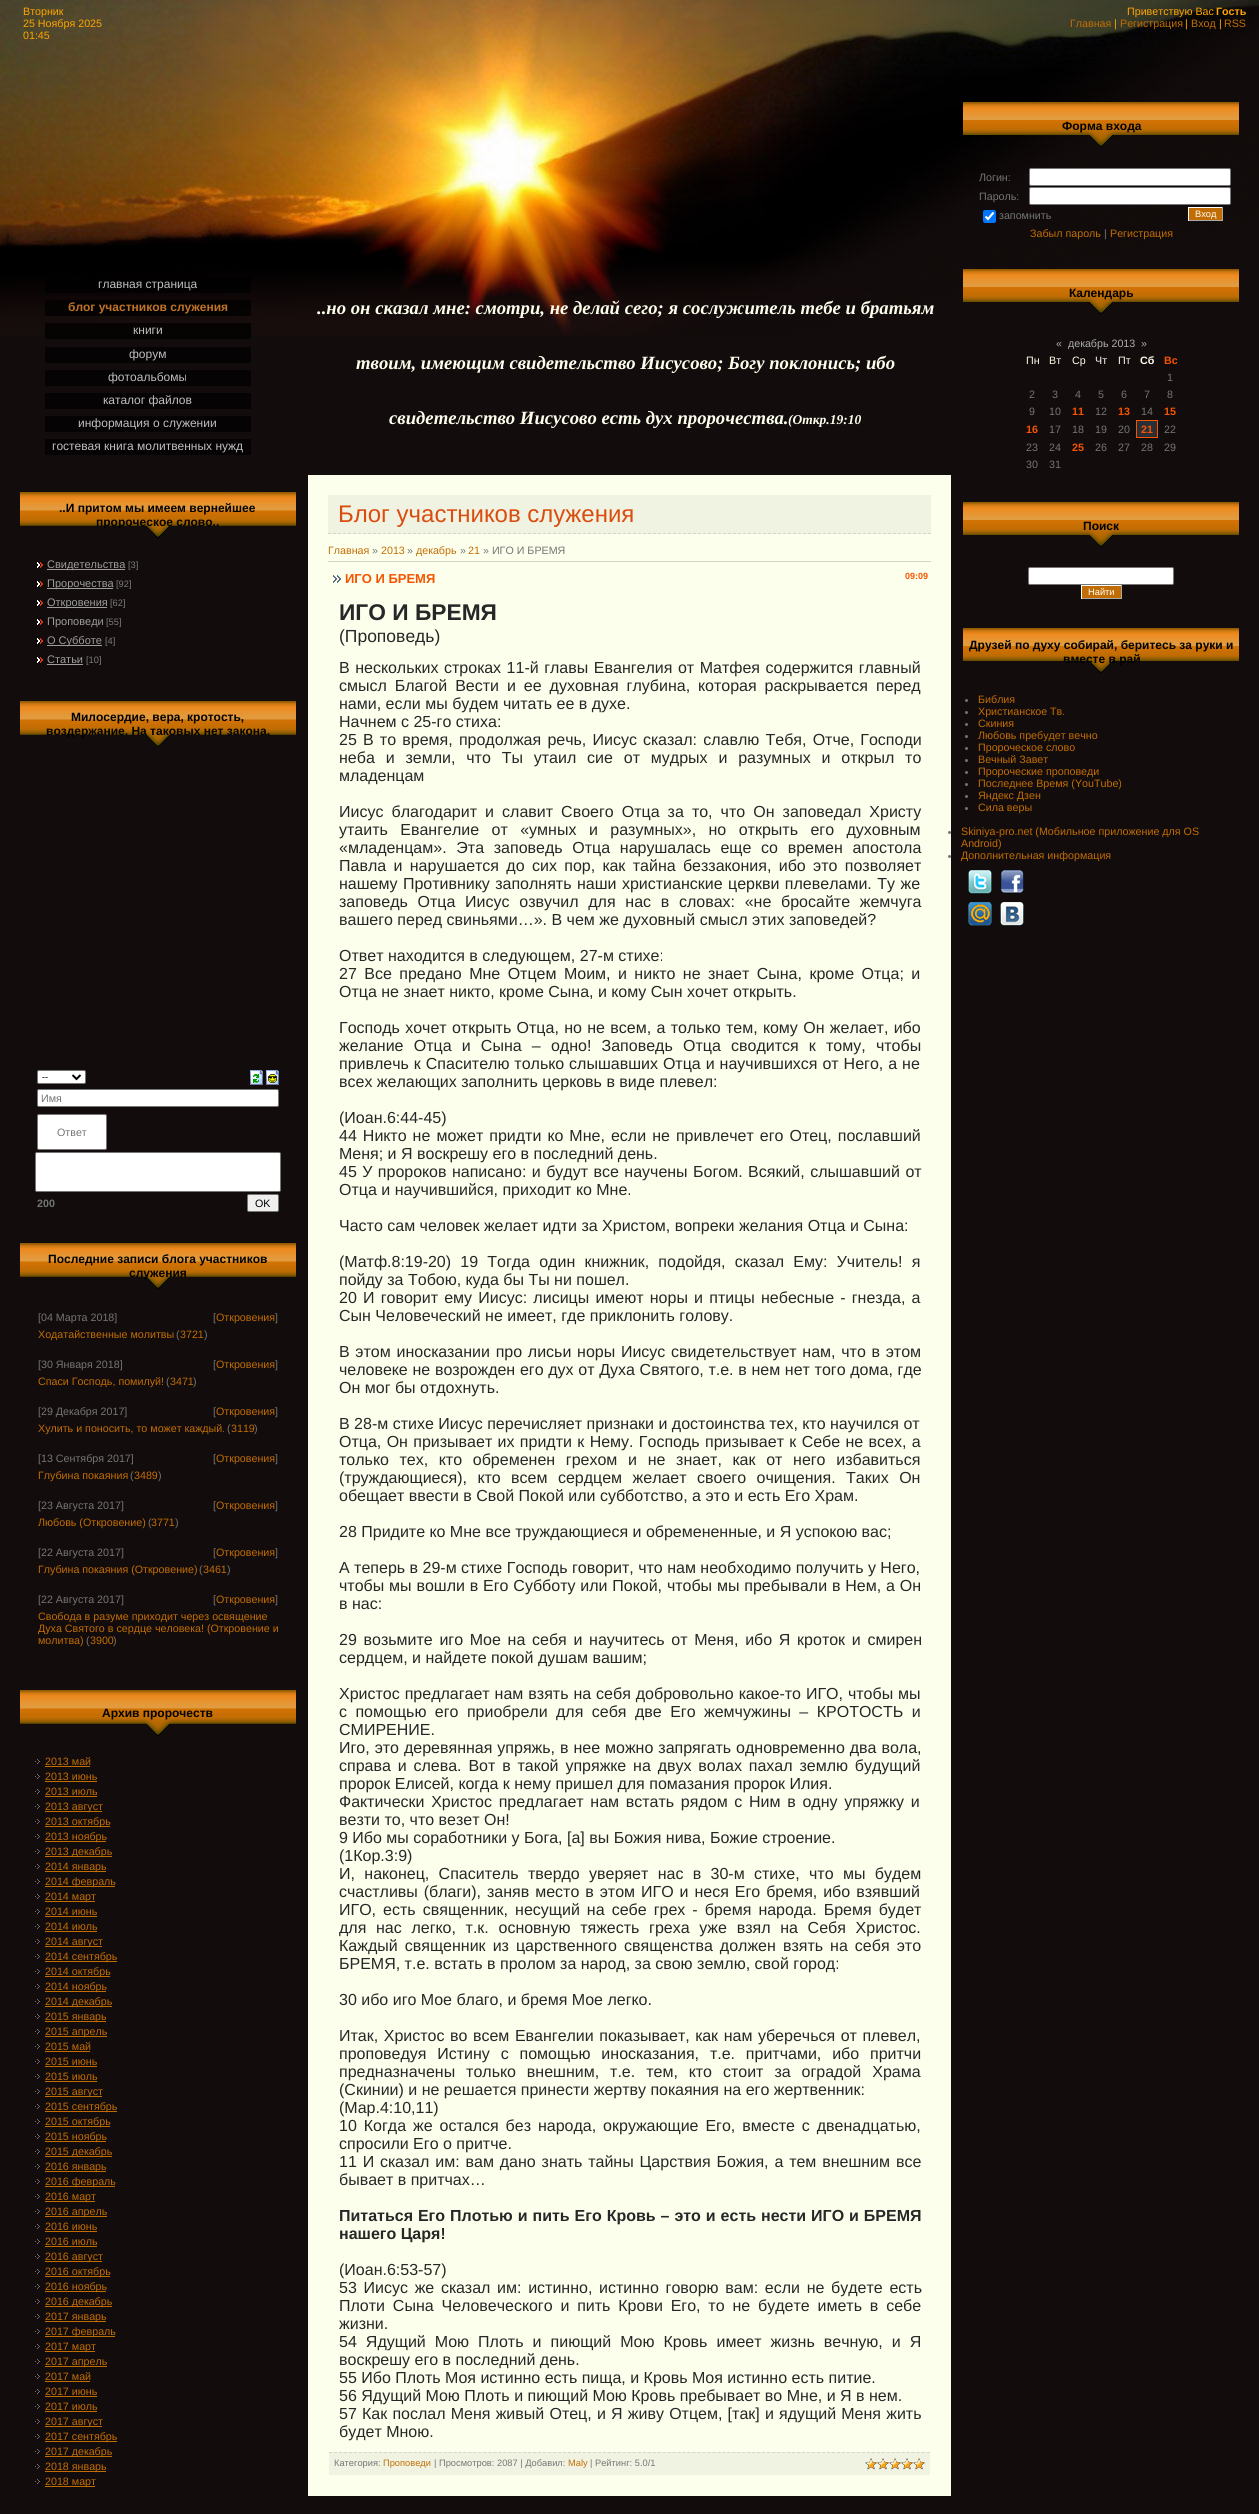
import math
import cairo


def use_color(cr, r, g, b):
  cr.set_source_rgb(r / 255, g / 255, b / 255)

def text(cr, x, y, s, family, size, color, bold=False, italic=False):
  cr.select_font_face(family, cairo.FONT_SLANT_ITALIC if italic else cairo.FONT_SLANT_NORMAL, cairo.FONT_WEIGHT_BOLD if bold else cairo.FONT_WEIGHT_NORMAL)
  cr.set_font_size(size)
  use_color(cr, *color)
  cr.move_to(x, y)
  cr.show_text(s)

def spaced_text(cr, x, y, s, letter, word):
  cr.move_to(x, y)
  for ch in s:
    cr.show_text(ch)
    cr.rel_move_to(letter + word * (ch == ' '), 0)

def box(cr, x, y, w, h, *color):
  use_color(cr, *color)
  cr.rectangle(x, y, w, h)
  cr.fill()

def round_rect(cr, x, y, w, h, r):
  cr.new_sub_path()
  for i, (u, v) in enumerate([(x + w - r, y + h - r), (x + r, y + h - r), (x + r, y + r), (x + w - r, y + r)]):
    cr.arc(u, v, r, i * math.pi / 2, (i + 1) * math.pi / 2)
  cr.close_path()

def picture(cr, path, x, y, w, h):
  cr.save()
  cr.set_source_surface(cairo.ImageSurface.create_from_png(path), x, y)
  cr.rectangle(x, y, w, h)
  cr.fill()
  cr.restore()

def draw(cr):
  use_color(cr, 18, 12, 12)
  cr.paint()
  picture(cr, "img_01.png", 0, 0, 1259, 336)
  cr.set_source_rgba(0, 0, 0, 0.75)
  cr.rectangle(45, 277, 206, 16)
  cr.fill()
  cr.rectangle(45, 300, 206, 16)
  cr.fill()
  cr.rectangle(45, 323, 206, 16)
  cr.fill()
  box(cr, 45, 347, 206, 16, 5, 3, 3)
  box(cr, 45, 370, 206, 16, 5, 3, 3)
  box(cr, 45, 393, 206, 16, 5, 3, 3)
  box(cr, 45, 416, 206, 16, 5, 3, 3)
  box(cr, 45, 439, 206, 16, 5, 3, 3)
  picture(cr, "img_02.png", 20, 492, 276, 46)
  picture(cr, "img_03.png", 37, 562, 6, 6)
  box(cr, 47, 569, 78, 1, 157, 157, 157)
  picture(cr, "img_03.png", 37, 581, 6, 6)
  box(cr, 47, 588, 66, 1, 157, 157, 157)
  picture(cr, "img_03.png", 37, 600, 6, 6)
  box(cr, 47, 607, 60, 1, 157, 157, 157)
  picture(cr, "img_03.png", 37, 619, 6, 6)
  picture(cr, "img_03.png", 37, 638, 6, 6)
  box(cr, 47, 645, 55, 1, 157, 157, 157)
  picture(cr, "img_03.png", 37, 657, 6, 6)
  box(cr, 47, 664, 36, 1, 157, 157, 157)
  picture(cr, "img_02.png", 20, 701, 276, 46)
  use_color(cr, 255, 255, 255)
  round_rect(cr, 37.5, 1070.5, 48, 13, 1.5)
  cr.fill_preserve()
  use_color(cr, 118, 118, 118)
  cr.set_line_width(1)
  cr.stroke()
  cr.new_path()
  cr.move_to(72.5, 1075)
  cr.line_to(76.5, 1079)
  cr.line_to(80.5, 1075)
  use_color(cr, 0, 0, 0)
  cr.set_line_width(2)
  cr.stroke()
  picture(cr, "img_04.png", 250, 1070, 13, 15)
  picture(cr, "img_05.png", 266, 1070, 13, 15)
  use_color(cr, 255, 255, 255)
  round_rect(cr, 37.5, 1089.5, 241, 17, 1.5)
  cr.fill_preserve()
  use_color(cr, 118, 118, 118)
  cr.set_line_width(1)
  cr.stroke()
  use_color(cr, 255, 255, 255)
  round_rect(cr, 37.5, 1114.5, 69, 35, 1.5)
  cr.fill_preserve()
  use_color(cr, 118, 118, 118)
  cr.stroke()
  use_color(cr, 255, 255, 255)
  round_rect(cr, 35.5, 1152.5, 245, 39, 1.5)
  cr.fill_preserve()
  use_color(cr, 118, 118, 118)
  cr.stroke()
  use_color(cr, 239, 239, 239)
  round_rect(cr, 247.5, 1194.5, 31, 17, 1.5)
  cr.fill_preserve()
  use_color(cr, 118, 118, 118)
  cr.stroke()
  picture(cr, "img_02.png", 20, 1243, 276, 46)
  picture(cr, "img_02.png", 20, 1690, 276, 46)
  picture(cr, "img_06.png", 35, 1759, 5, 5)
  box(cr, 45, 1766, 45, 1, 194, 109, 3)
  picture(cr, "img_06.png", 35, 1774, 5, 5)
  box(cr, 45, 1781, 52, 1, 194, 109, 3)
  picture(cr, "img_06.png", 35, 1789, 5, 5)
  box(cr, 45, 1796, 52, 1, 194, 109, 3)
  picture(cr, "img_06.png", 35, 1804, 5, 5)
  box(cr, 45, 1811, 57, 1, 194, 109, 3)
  picture(cr, "img_06.png", 35, 1819, 5, 5)
  box(cr, 45, 1826, 65, 1, 194, 109, 3)
  picture(cr, "img_06.png", 35, 1834, 5, 5)
  box(cr, 45, 1841, 61, 1, 194, 109, 3)
  picture(cr, "img_06.png", 35, 1849, 5, 5)
  box(cr, 45, 1856, 67, 1, 194, 109, 3)
  picture(cr, "img_06.png", 35, 1864, 5, 5)
  box(cr, 45, 1871, 61, 1, 194, 109, 3)
  picture(cr, "img_06.png", 35, 1879, 5, 5)
  box(cr, 45, 1886, 70, 1, 194, 109, 3)
  picture(cr, "img_06.png", 35, 1894, 5, 5)
  box(cr, 45, 1901, 50, 1, 194, 109, 3)
  picture(cr, "img_06.png", 35, 1909, 5, 5)
  box(cr, 45, 1916, 52, 1, 194, 109, 3)
  picture(cr, "img_06.png", 35, 1924, 5, 5)
  box(cr, 45, 1931, 52, 1, 194, 109, 3)
  picture(cr, "img_06.png", 35, 1939, 5, 5)
  box(cr, 45, 1946, 57, 1, 194, 109, 3)
  picture(cr, "img_06.png", 35, 1954, 5, 5)
  box(cr, 45, 1961, 72, 1, 194, 109, 3)
  picture(cr, "img_06.png", 35, 1969, 5, 5)
  box(cr, 45, 1976, 65, 1, 194, 109, 3)
  picture(cr, "img_06.png", 35, 1984, 5, 5)
  box(cr, 45, 1991, 61, 1, 194, 109, 3)
  picture(cr, "img_06.png", 35, 1999, 5, 5)
  box(cr, 45, 2006, 67, 1, 194, 109, 3)
  picture(cr, "img_06.png", 35, 2014, 5, 5)
  box(cr, 45, 2021, 61, 1, 194, 109, 3)
  picture(cr, "img_06.png", 35, 2029, 5, 5)
  box(cr, 45, 2036, 62, 1, 194, 109, 3)
  picture(cr, "img_06.png", 35, 2044, 5, 5)
  box(cr, 45, 2051, 45, 1, 194, 109, 3)
  picture(cr, "img_06.png", 35, 2059, 5, 5)
  box(cr, 45, 2066, 52, 1, 194, 109, 3)
  picture(cr, "img_06.png", 35, 2074, 5, 5)
  box(cr, 45, 2081, 52, 1, 194, 109, 3)
  picture(cr, "img_06.png", 35, 2089, 5, 5)
  box(cr, 45, 2096, 57, 1, 194, 109, 3)
  picture(cr, "img_06.png", 35, 2104, 5, 5)
  box(cr, 45, 2111, 72, 1, 194, 109, 3)
  picture(cr, "img_06.png", 35, 2119, 5, 5)
  box(cr, 45, 2126, 65, 1, 194, 109, 3)
  picture(cr, "img_06.png", 35, 2134, 5, 5)
  box(cr, 45, 2141, 61, 1, 194, 109, 3)
  picture(cr, "img_06.png", 35, 2149, 5, 5)
  box(cr, 45, 2156, 67, 1, 194, 109, 3)
  picture(cr, "img_06.png", 35, 2164, 5, 5)
  box(cr, 45, 2171, 61, 1, 194, 109, 3)
  picture(cr, "img_06.png", 35, 2179, 5, 5)
  box(cr, 45, 2186, 70, 1, 194, 109, 3)
  picture(cr, "img_06.png", 35, 2194, 5, 5)
  box(cr, 45, 2201, 50, 1, 194, 109, 3)
  picture(cr, "img_06.png", 35, 2209, 5, 5)
  box(cr, 45, 2216, 62, 1, 194, 109, 3)
  picture(cr, "img_06.png", 35, 2224, 5, 5)
  box(cr, 45, 2231, 52, 1, 194, 109, 3)
  picture(cr, "img_06.png", 35, 2239, 5, 5)
  box(cr, 45, 2246, 52, 1, 194, 109, 3)
  picture(cr, "img_06.png", 35, 2254, 5, 5)
  box(cr, 45, 2261, 57, 1, 194, 109, 3)
  picture(cr, "img_06.png", 35, 2269, 5, 5)
  box(cr, 45, 2276, 65, 1, 194, 109, 3)
  picture(cr, "img_06.png", 35, 2284, 5, 5)
  box(cr, 45, 2291, 61, 1, 194, 109, 3)
  picture(cr, "img_06.png", 35, 2299, 5, 5)
  box(cr, 45, 2306, 67, 1, 194, 109, 3)
  picture(cr, "img_06.png", 35, 2314, 5, 5)
  box(cr, 45, 2321, 61, 1, 194, 109, 3)
  picture(cr, "img_06.png", 35, 2329, 5, 5)
  box(cr, 45, 2336, 70, 1, 194, 109, 3)
  picture(cr, "img_06.png", 35, 2344, 5, 5)
  box(cr, 45, 2351, 50, 1, 194, 109, 3)
  picture(cr, "img_06.png", 35, 2359, 5, 5)
  box(cr, 45, 2366, 62, 1, 194, 109, 3)
  picture(cr, "img_06.png", 35, 2374, 5, 5)
  box(cr, 45, 2381, 45, 1, 194, 109, 3)
  picture(cr, "img_06.png", 35, 2389, 5, 5)
  box(cr, 45, 2396, 52, 1, 194, 109, 3)
  picture(cr, "img_06.png", 35, 2404, 5, 5)
  box(cr, 45, 2411, 52, 1, 194, 109, 3)
  picture(cr, "img_06.png", 35, 2419, 5, 5)
  box(cr, 45, 2426, 57, 1, 194, 109, 3)
  picture(cr, "img_06.png", 35, 2434, 5, 5)
  box(cr, 45, 2441, 72, 1, 194, 109, 3)
  picture(cr, "img_06.png", 35, 2449, 5, 5)
  box(cr, 45, 2456, 67, 1, 194, 109, 3)
  picture(cr, "img_06.png", 35, 2464, 5, 5)
  box(cr, 45, 2471, 61, 1, 194, 109, 3)
  picture(cr, "img_06.png", 35, 2479, 5, 5)
  box(cr, 45, 2486, 50, 1, 194, 109, 3)
  box(cr, 308, 475, 643, 2021, 253, 255, 237)
  box(cr, 328, 495, 603, 39, 241, 243, 226)
  cr.new_path()
  cr.move_to(328, 533.5)
  cr.line_to(931, 533.5)
  use_color(cr, 211, 213, 198)
  cr.set_dash([3, 2])
  cr.stroke()
  box(cr, 328, 561, 603, 1, 211, 213, 198)
  picture(cr, "img_07.png", 333, 575, 8, 8)
  box(cr, 329, 2452, 601, 23, 241, 243, 226)
  cr.new_path()
  cr.move_to(329, 2452.5)
  cr.line_to(930, 2452.5)
  use_color(cr, 211, 213, 198)
  cr.set_dash([3, 1.98])
  cr.stroke()
  picture(cr, "img_08.png", 865, 2458, 60, 12)
  picture(cr, "img_09.png", 865, 2458, 60, 12)
  picture(cr, "img_10.png", 963, 102, 276, 45)
  use_color(cr, 255, 255, 255)
  round_rect(cr, 1029.5, 168.5, 201, 17, 1.5)
  cr.fill_preserve()
  use_color(cr, 118, 118, 118)
  cr.set_dash([])
  cr.stroke()
  use_color(cr, 255, 255, 255)
  round_rect(cr, 1029.5, 187.5, 201, 17, 1.5)
  cr.fill_preserve()
  use_color(cr, 118, 118, 118)
  cr.stroke()
  use_color(cr, 0, 117, 255)
  round_rect(cr, 983, 210, 13, 13, 2)
  cr.fill()
  cr.new_path()
  cr.move_to(985.5, 216.5)
  cr.line_to(988, 219)
  cr.line_to(993.5, 212.5)
  use_color(cr, 255, 255, 255)
  cr.set_line_width(2.1)
  cr.stroke()
  box(cr, 1189, 208, 33, 12, 194, 109, 3)
  box(cr, 1188, 207, 35, 1, 255, 255, 255)
  box(cr, 1222, 207, 1, 14, 170, 170, 170)
  box(cr, 1188, 220, 35, 1, 170, 170, 170)
  box(cr, 1188, 207, 1, 14, 255, 255, 255)
  picture(cr, "img_11.png", 963, 269, 276, 45)
  use_color(cr, 40, 47, 57)
  cr.rectangle(1136.5, 420.5, 21, 17)
  cr.fill_preserve()
  use_color(cr, 246, 84, 0)
  cr.set_line_width(1)
  cr.stroke()
  picture(cr, "img_11.png", 963, 502, 276, 45)
  use_color(cr, 255, 255, 255)
  round_rect(cr, 1028.5, 567.5, 145, 17, 1.5)
  cr.fill_preserve()
  use_color(cr, 118, 118, 118)
  cr.stroke()
  box(cr, 1082, 586, 39, 12, 194, 109, 3)
  box(cr, 1081, 585, 41, 1, 255, 255, 255)
  box(cr, 1121, 585, 1, 14, 170, 170, 170)
  box(cr, 1081, 598, 41, 1, 170, 170, 170)
  box(cr, 1081, 585, 1, 14, 255, 255, 255)
  picture(cr, "img_11.png", 963, 628, 276, 45)
  use_color(cr, 117, 117, 117)
  cr.arc(966.5, 700.5, 1.5, 0, 2 * math.pi)
  cr.fill()
  cr.arc(966.5, 712.5, 1.5, 0, 2 * math.pi)
  cr.fill()
  cr.arc(966.5, 724.5, 1.5, 0, 2 * math.pi)
  cr.fill()
  cr.arc(966.5, 736.5, 1.5, 0, 2 * math.pi)
  cr.fill()
  cr.arc(966.5, 748.5, 1.5, 0, 2 * math.pi)
  cr.fill()
  cr.arc(966.5, 760.5, 1.5, 0, 2 * math.pi)
  cr.fill()
  cr.arc(966.5, 772.5, 1.5, 0, 2 * math.pi)
  cr.fill()
  cr.arc(966.5, 784.5, 1.5, 0, 2 * math.pi)
  cr.fill()
  cr.arc(966.5, 796.5, 1.5, 0, 2 * math.pi)
  cr.fill()
  cr.arc(966.5, 808.5, 1.5, 0, 2 * math.pi)
  cr.fill()
  cr.arc(949.5, 832.5, 1.5, 0, 2 * math.pi)
  cr.fill()
  cr.arc(949.5, 856.5, 1.5, 0, 2 * math.pi)
  cr.fill()
  picture(cr, "img_12.png", 968, 870, 24, 24)
  picture(cr, "img_13.png", 1001, 870, 23, 24)
  picture(cr, "img_14.png", 968, 902, 24, 24)
  picture(cr, "img_15.png", 1000, 902, 24, 24)
  text(cr, 23, 15, "Вторник", "Liberation Sans", 10.7, (255, 165, 0))
  text(cr, 23, 27, "25 Ноября 2025", "Liberation Sans", 10.7, (255, 165, 0))
  text(cr, 23, 39, "01:45", "Liberation Sans", 10.7, (255, 165, 0))
  text(cr, 1127, 15, "Приветствую Вас", "Liberation Sans", 10.7, (255, 165, 0))
  text(cr, 1216, 15, "Гость", "Liberation Sans", 10.7, (255, 165, 0), bold=True)
  text(cr, 1070, 27, "Главная", "Liberation Sans", 10.7, (194, 109, 3))
  text(cr, 1114, 27, "|", "Liberation Sans", 10.7, (255, 165, 0))
  text(cr, 1120, 27, "Регистрация", "Liberation Sans", 10.7, (194, 109, 3))
  text(cr, 1185, 27, "|", "Liberation Sans", 10.7, (255, 165, 0))
  text(cr, 1191, 27, "Вход", "Liberation Sans", 10.7, (194, 109, 3))
  text(cr, 1219, 27, "|", "Liberation Sans", 10.7, (255, 165, 0))
  text(cr, 1224, 27, "RSS", "Liberation Sans", 10.7, (194, 109, 3))
  text(cr, 98, 288, "главная страница", "Liberation Sans", 12, (192, 191, 191))
  text(cr, 68, 311, "блог участников служения", "Liberation Sans", 12, (191, 115, 39), bold=True)
  text(cr, 133, 334, "книги", "Liberation Sans", 12, (192, 191, 191))
  text(cr, 129, 358, "форум", "Liberation Sans", 12, (192, 191, 191))
  text(cr, 108, 381, "фотоальбомы", "Liberation Sans", 12, (192, 191, 191))
  text(cr, 103, 404, "каталог файлов", "Liberation Sans", 12, (192, 191, 191))
  text(cr, 78, 427, "информация о служении", "Liberation Sans", 12, (192, 191, 191))
  text(cr, 52, 450, "гостевая книга молитвенных нужд", "Liberation Sans", 12, (192, 191, 191))
  text(cr, 59, 512, "..И притом мы имеем вернейшее", "Liberation Sans", 12, (0, 0, 0), bold=True)
  text(cr, 96, 526, "пророческое слово..", "Liberation Sans", 12, (0, 0, 0), bold=True)
  text(cr, 47, 568, "Свидетельства", "Liberation Sans", 11, (157, 157, 157))
  text(cr, 128, 568, "[3]", "Liberation Sans", 9.3, (123, 123, 123))
  text(cr, 47, 587, "Пророчества", "Liberation Sans", 11, (157, 157, 157))
  text(cr, 116, 587, "[92]", "Liberation Sans", 9.3, (123, 123, 123))
  text(cr, 47, 606, "Откровения", "Liberation Sans", 11, (157, 157, 157))
  text(cr, 110, 606, "[62]", "Liberation Sans", 9.3, (123, 123, 123))
  text(cr, 47, 625, "Проповеди", "Liberation Sans", 11, (157, 157, 157))
  text(cr, 106, 625, "[55]", "Liberation Sans", 9.3, (123, 123, 123))
  text(cr, 47, 644, "О Субботе", "Liberation Sans", 11, (157, 157, 157))
  text(cr, 105, 644, "[4]", "Liberation Sans", 9.3, (123, 123, 123))
  text(cr, 47, 663, "Статьи", "Liberation Sans", 11, (157, 157, 157))
  text(cr, 86, 663, "[10]", "Liberation Sans", 9.3, (123, 123, 123))
  text(cr, 71, 721, "Милосердие, вера, кротость,", "Liberation Sans", 12, (0, 0, 0), bold=True)
  text(cr, 46, 735, "воздержание. На таковых нет закона.", "Liberation Sans", 12, (0, 0, 0), bold=True)
  text(cr, 42, 1080, "--", "Liberation Sans", 9.3, (0, 0, 0))
  text(cr, 41, 1102, "Имя", "Liberation Sans", 10.7, (117, 117, 117))
  text(cr, 57, 1136, "Ответ", "Liberation Sans", 10.7, (117, 117, 117))
  text(cr, 37, 1207, "200", "Liberation Sans", 10.7, (117, 117, 117), bold=True)
  text(cr, 255, 1207, "OK", "Liberation Sans", 10.7, (0, 0, 0))
  text(cr, 48, 1263, "Последние записи блога участников", "Liberation Sans", 12, (0, 0, 0), bold=True)
  text(cr, 129, 1277, "служения", "Liberation Sans", 12, (0, 0, 0), bold=True)
  text(cr, 38, 1321, "[04 Марта 2018]", "Liberation Sans", 10.7, (117, 117, 117))
  text(cr, 213, 1321, "[", "Liberation Sans", 10.7, (117, 117, 117))
  text(cr, 216, 1321, "Откровения", "Liberation Sans", 10.7, (194, 109, 3))
  text(cr, 275, 1321, "]", "Liberation Sans", 10.7, (117, 117, 117))
  text(cr, 38, 1338, "Ходатайственные молитвы", "Liberation Sans", 10.7, (194, 109, 3))
  text(cr, 176, 1338, "(", "Liberation Sans", 10.7, (117, 117, 117))
  text(cr, 180, 1338, "3721", "Liberation Sans", 10.7, (194, 109, 3))
  text(cr, 204, 1338, ")", "Liberation Sans", 10.7, (117, 117, 117))
  text(cr, 38, 1368, "[30 Января 2018]", "Liberation Sans", 10.7, (117, 117, 117))
  text(cr, 213, 1368, "[", "Liberation Sans", 10.7, (117, 117, 117))
  text(cr, 216, 1368, "Откровения", "Liberation Sans", 10.7, (194, 109, 3))
  text(cr, 275, 1368, "]", "Liberation Sans", 10.7, (117, 117, 117))
  text(cr, 38, 1385, "Спаси Господь, помилуй!", "Liberation Sans", 10.7, (194, 109, 3))
  text(cr, 166, 1385, "(", "Liberation Sans", 10.7, (117, 117, 117))
  text(cr, 170, 1385, "3471", "Liberation Sans", 10.7, (194, 109, 3))
  text(cr, 193, 1385, ")", "Liberation Sans", 10.7, (117, 117, 117))
  text(cr, 38, 1415, "[29 Декабря 2017]", "Liberation Sans", 10.7, (117, 117, 117))
  text(cr, 213, 1415, "[", "Liberation Sans", 10.7, (117, 117, 117))
  text(cr, 216, 1415, "Откровения", "Liberation Sans", 10.7, (194, 109, 3))
  text(cr, 275, 1415, "]", "Liberation Sans", 10.7, (117, 117, 117))
  text(cr, 38, 1432, "Хулить и поносить, то может каждый.", "Liberation Sans", 10.7, (194, 109, 3))
  text(cr, 227, 1432, "(", "Liberation Sans", 10.7, (117, 117, 117))
  text(cr, 231, 1432, "3119", "Liberation Sans", 10.7, (194, 109, 3))
  text(cr, 254, 1432, ")", "Liberation Sans", 10.7, (117, 117, 117))
  text(cr, 38, 1462, "[13 Сентября 2017]", "Liberation Sans", 10.7, (117, 117, 117))
  text(cr, 213, 1462, "[", "Liberation Sans", 10.7, (117, 117, 117))
  text(cr, 216, 1462, "Откровения", "Liberation Sans", 10.7, (194, 109, 3))
  text(cr, 275, 1462, "]", "Liberation Sans", 10.7, (117, 117, 117))
  text(cr, 38, 1479, "Глубина покаяния", "Liberation Sans", 10.7, (194, 109, 3))
  text(cr, 130, 1479, "(", "Liberation Sans", 10.7, (117, 117, 117))
  text(cr, 134, 1479, "3489", "Liberation Sans", 10.7, (194, 109, 3))
  text(cr, 158, 1479, ")", "Liberation Sans", 10.7, (117, 117, 117))
  text(cr, 38, 1509, "[23 Августа 2017]", "Liberation Sans", 10.7, (117, 117, 117))
  text(cr, 213, 1509, "[", "Liberation Sans", 10.7, (117, 117, 117))
  text(cr, 216, 1509, "Откровения", "Liberation Sans", 10.7, (194, 109, 3))
  text(cr, 275, 1509, "]", "Liberation Sans", 10.7, (117, 117, 117))
  text(cr, 38, 1526, "Любовь (Откровение)", "Liberation Sans", 10.7, (194, 109, 3))
  text(cr, 148, 1526, "(", "Liberation Sans", 10.7, (117, 117, 117))
  text(cr, 151, 1526, "3771", "Liberation Sans", 10.7, (194, 109, 3))
  text(cr, 175, 1526, ")", "Liberation Sans", 10.7, (117, 117, 117))
  text(cr, 38, 1556, "[22 Августа 2017]", "Liberation Sans", 10.7, (117, 117, 117))
  text(cr, 213, 1556, "[", "Liberation Sans", 10.7, (117, 117, 117))
  text(cr, 216, 1556, "Откровения", "Liberation Sans", 10.7, (194, 109, 3))
  text(cr, 275, 1556, "]", "Liberation Sans", 10.7, (117, 117, 117))
  text(cr, 38, 1573, "Глубина покаяния (Откровение)", "Liberation Sans", 10.7, (194, 109, 3))
  text(cr, 199, 1573, "(", "Liberation Sans", 10.7, (117, 117, 117))
  text(cr, 203, 1573, "3461", "Liberation Sans", 10.7, (194, 109, 3))
  text(cr, 227, 1573, ")", "Liberation Sans", 10.7, (117, 117, 117))
  text(cr, 38, 1603, "[22 Августа 2017]", "Liberation Sans", 10.7, (117, 117, 117))
  text(cr, 213, 1603, "[", "Liberation Sans", 10.7, (117, 117, 117))
  text(cr, 216, 1603, "Откровения", "Liberation Sans", 10.7, (194, 109, 3))
  text(cr, 275, 1603, "]", "Liberation Sans", 10.7, (117, 117, 117))
  text(cr, 38, 1620, "Свобода в разуме приходит через освящение", "Liberation Sans", 10.7, (194, 109, 3))
  text(cr, 38, 1632, "Духа Святого в сердце человека! (Откровение и", "Liberation Sans", 10.7, (194, 109, 3))
  text(cr, 38, 1644, "молитва)", "Liberation Sans", 10.7, (194, 109, 3))
  text(cr, 86, 1644, "(", "Liberation Sans", 10.7, (117, 117, 117))
  text(cr, 90, 1644, "3900", "Liberation Sans", 10.7, (194, 109, 3))
  text(cr, 113, 1644, ")", "Liberation Sans", 10.7, (117, 117, 117))
  text(cr, 102, 1717, "Архив пророчеств", "Liberation Sans", 12, (0, 0, 0), bold=True)
  text(cr, 45, 1765, "2013 май", "Liberation Sans", 10.7, (194, 109, 3))
  text(cr, 45, 1780, "2013 июнь", "Liberation Sans", 10.7, (194, 109, 3))
  text(cr, 45, 1795, "2013 июль", "Liberation Sans", 10.7, (194, 109, 3))
  text(cr, 45, 1810, "2013 август", "Liberation Sans", 10.7, (194, 109, 3))
  text(cr, 45, 1825, "2013 октябрь", "Liberation Sans", 10.7, (194, 109, 3))
  text(cr, 45, 1840, "2013 ноябрь", "Liberation Sans", 10.7, (194, 109, 3))
  text(cr, 45, 1855, "2013 декабрь", "Liberation Sans", 10.7, (194, 109, 3))
  text(cr, 45, 1870, "2014 январь", "Liberation Sans", 10.7, (194, 109, 3))
  text(cr, 45, 1885, "2014 февраль", "Liberation Sans", 10.7, (194, 109, 3))
  text(cr, 45, 1900, "2014 март", "Liberation Sans", 10.7, (194, 109, 3))
  text(cr, 45, 1915, "2014 июнь", "Liberation Sans", 10.7, (194, 109, 3))
  text(cr, 45, 1930, "2014 июль", "Liberation Sans", 10.7, (194, 109, 3))
  text(cr, 45, 1945, "2014 август", "Liberation Sans", 10.7, (194, 109, 3))
  text(cr, 45, 1960, "2014 сентябрь", "Liberation Sans", 10.7, (194, 109, 3))
  text(cr, 45, 1975, "2014 октябрь", "Liberation Sans", 10.7, (194, 109, 3))
  text(cr, 45, 1990, "2014 ноябрь", "Liberation Sans", 10.7, (194, 109, 3))
  text(cr, 45, 2005, "2014 декабрь", "Liberation Sans", 10.7, (194, 109, 3))
  text(cr, 45, 2020, "2015 январь", "Liberation Sans", 10.7, (194, 109, 3))
  text(cr, 45, 2035, "2015 апрель", "Liberation Sans", 10.7, (194, 109, 3))
  text(cr, 45, 2050, "2015 май", "Liberation Sans", 10.7, (194, 109, 3))
  text(cr, 45, 2065, "2015 июнь", "Liberation Sans", 10.7, (194, 109, 3))
  text(cr, 45, 2080, "2015 июль", "Liberation Sans", 10.7, (194, 109, 3))
  text(cr, 45, 2095, "2015 август", "Liberation Sans", 10.7, (194, 109, 3))
  text(cr, 45, 2110, "2015 сентябрь", "Liberation Sans", 10.7, (194, 109, 3))
  text(cr, 45, 2125, "2015 октябрь", "Liberation Sans", 10.7, (194, 109, 3))
  text(cr, 45, 2140, "2015 ноябрь", "Liberation Sans", 10.7, (194, 109, 3))
  text(cr, 45, 2155, "2015 декабрь", "Liberation Sans", 10.7, (194, 109, 3))
  text(cr, 45, 2170, "2016 январь", "Liberation Sans", 10.7, (194, 109, 3))
  text(cr, 45, 2185, "2016 февраль", "Liberation Sans", 10.7, (194, 109, 3))
  text(cr, 45, 2200, "2016 март", "Liberation Sans", 10.7, (194, 109, 3))
  text(cr, 45, 2215, "2016 апрель", "Liberation Sans", 10.7, (194, 109, 3))
  text(cr, 45, 2230, "2016 июнь", "Liberation Sans", 10.7, (194, 109, 3))
  text(cr, 45, 2245, "2016 июль", "Liberation Sans", 10.7, (194, 109, 3))
  text(cr, 45, 2260, "2016 август", "Liberation Sans", 10.7, (194, 109, 3))
  text(cr, 45, 2275, "2016 октябрь", "Liberation Sans", 10.7, (194, 109, 3))
  text(cr, 45, 2290, "2016 ноябрь", "Liberation Sans", 10.7, (194, 109, 3))
  text(cr, 45, 2305, "2016 декабрь", "Liberation Sans", 10.7, (194, 109, 3))
  text(cr, 45, 2320, "2017 январь", "Liberation Sans", 10.7, (194, 109, 3))
  text(cr, 45, 2335, "2017 февраль", "Liberation Sans", 10.7, (194, 109, 3))
  text(cr, 45, 2350, "2017 март", "Liberation Sans", 10.7, (194, 109, 3))
  text(cr, 45, 2365, "2017 апрель", "Liberation Sans", 10.7, (194, 109, 3))
  text(cr, 45, 2380, "2017 май", "Liberation Sans", 10.7, (194, 109, 3))
  text(cr, 45, 2395, "2017 июнь", "Liberation Sans", 10.7, (194, 109, 3))
  text(cr, 45, 2410, "2017 июль", "Liberation Sans", 10.7, (194, 109, 3))
  text(cr, 45, 2425, "2017 август", "Liberation Sans", 10.7, (194, 109, 3))
  text(cr, 45, 2440, "2017 сентябрь", "Liberation Sans", 10.7, (194, 109, 3))
  text(cr, 45, 2455, "2017 декабрь", "Liberation Sans", 10.7, (194, 109, 3))
  text(cr, 45, 2470, "2018 январь", "Liberation Sans", 10.7, (194, 109, 3))
  text(cr, 45, 2485, "2018 март", "Liberation Sans", 10.7, (194, 109, 3))
  text(cr, 317, 314, "..но он сказал мне: смотри, не делай сего; я сослужитель тебе и братьям", "Liberation Serif", 18.7, (253, 255, 237), bold=True, italic=True)
  text(cr, 356, 369, "твоим, имеющим свидетельство Иисусово; Богу поклонись; ибо", "Liberation Serif", 18.7, (253, 255, 237), bold=True, italic=True)
  text(cr, 389, 424, "свидетельство Иисусово есть дух пророчества.", "Liberation Serif", 18.7, (253, 255, 237), bold=True, italic=True)
  text(cr, 788, 424, "(Откр.19:10", "Liberation Serif", 13.5, (253, 255, 237), bold=True, italic=True)
  text(cr, 338, 522, "Блог участников служения", "Liberation Sans", 24, (218, 77, 14))
  text(cr, 328, 554, "Главная", "Liberation Sans", 10.7, (194, 109, 3))
  text(cr, 372, 554, "»", "Liberation Sans", 10.7, (117, 117, 117))
  text(cr, 381, 554, "2013", "Liberation Sans", 10.7, (194, 109, 3))
  text(cr, 407, 554, "»", "Liberation Sans", 10.7, (117, 117, 117))
  text(cr, 416, 554, "декабрь", "Liberation Sans", 10.7, (194, 109, 3))
  text(cr, 460, 554, "»", "Liberation Sans", 10.7, (117, 117, 117))
  text(cr, 468, 554, "21", "Liberation Sans", 10.7, (194, 109, 3))
  text(cr, 483, 554, "» ИГО И БРЕМЯ", "Liberation Sans", 10.7, (117, 117, 117))
  text(cr, 345, 583, "ИГО И БРЕМЯ", "Liberation Sans", 13, (246, 84, 0), bold=True)
  text(cr, 905, 579, "09:09", "Liberation Sans", 9, (246, 84, 0), bold=True)
  text(cr, 339, 620, "ИГО И БРЕМЯ", "Liberation Sans", 22.75, (39, 39, 39), bold=True)
  text(cr, 339, 642, "(Проповедь)", "Liberation Sans", 17.5, (39, 39, 39))
  cr.set_font_size(16)
  spaced_text(cr, 339, 673, "В нескольких строках 11-й главы Евангелия от Матфея содержится главный", 0, 1.1)
  spaced_text(cr, 339, 691, "смысл Благой Вести и ее духовная глубина, которая раскрывается перед", 0, 3.5)
  text(cr, 339, 709, "нами, если мы будем читать ее в духе.", "Liberation Sans", 16, (39, 39, 39))
  text(cr, 339, 727, "Начнем с 25-го стиха:", "Liberation Sans", 16, (39, 39, 39))
  spaced_text(cr, 339, 745, "25 В то время, продолжая речь, Иисус сказал: славлю Тебя, Отче, Господи", 0, 1.75)
  spaced_text(cr, 339, 763, "неба и земли, что Ты утаил сие от мудрых и разумных и открыл то", 0, 6.4)
  text(cr, 339, 781, "младенцам", "Liberation Sans", 16, (39, 39, 39))
  spaced_text(cr, 339, 817, "Иисус благодарит и славит Своего Отца за то, что Он заповедал Христу", 0, 3.6)
  spaced_text(cr, 339, 835, "утаить Евангелие от «умных и разумных», но открыть его духовным", 0, 8)
  spaced_text(cr, 339, 853, "«младенцам». Эта заповедь Отца нарушалась еще со времен апостола", 0, 5.25)
  spaced_text(cr, 339, 871, "Павла и нарушается до сих пор, как тайна беззакония, ибо это позволяет", 0, 2.9)
  spaced_text(cr, 339, 889, "нашему Противнику заполнять наши христианские церкви плевелами. Ту же", 0, 1)
  spaced_text(cr, 339, 907, "заповедь Отца Иисус озвучил для нас в словах: «не бросайте жемчуга", 0, 5.25)
  text(cr, 339, 925, "вашего перед свиньями…». В чем же духовный смысл этих заповедей?", "Liberation Sans", 16, (39, 39, 39))
  text(cr, 339, 961, "Ответ находится в следующем, 27-м стихе:", "Liberation Sans", 16, (39, 39, 39))
  spaced_text(cr, 339, 979, "27 Все предано Мне Отцем Моим, и никто не знает Сына, кроме Отца; и", 0, 3)
  text(cr, 339, 997, "Отца не знает никто, кроме Сына, и кому Сын хочет открыть.", "Liberation Sans", 16, (39, 39, 39))
  spaced_text(cr, 339, 1033, "Господь хочет открыть Отца, но не всем, а только тем, кому Он желает, ибо", 0, 0.9)
  spaced_text(cr, 339, 1051, "желание Отца и Сына – одно! Заповедь Отца сводится к тому, чтобы", 0, 5.75)
  spaced_text(cr, 339, 1069, "привлечь к Спасителю только слышавших Отца и научившихся от Него, а не", 0, 0.5)
  text(cr, 339, 1087, "всех желающих заполнить церковь в виде плевел:", "Liberation Sans", 16, (39, 39, 39))
  text(cr, 339, 1123, "(Иоан.6:44-45)", "Liberation Sans", 16, (39, 39, 39))
  spaced_text(cr, 339, 1141, "44 Никто не может придти ко Мне, если не привлечет его Отец, пославший", 0, 1.6)
  text(cr, 339, 1159, "Меня; и Я воскрешу его в последний день.", "Liberation Sans", 16, (39, 39, 39))
  spaced_text(cr, 339, 1177, "45 У пророков написано: и будут все научены Богом. Всякий, слышавший от", 0, 1)
  text(cr, 339, 1195, "Отца и научившийся, приходит ко Мне.", "Liberation Sans", 16, (39, 39, 39))
  text(cr, 339, 1231, "Часто сам человек желает идти за Христом, вопреки желания Отца и Сына:", "Liberation Sans", 16, (39, 39, 39))
  spaced_text(cr, 339, 1267, "(Матф.8:19-20) 19 Тогда один книжник, подойдя, сказал Ему: Учитель! я", 0, 4.75)
  text(cr, 339, 1285, "пойду за Тобою, куда бы Ты ни пошел.", "Liberation Sans", 16, (39, 39, 39))
  spaced_text(cr, 339, 1303, "20 И говорит ему Иисус: лисицы имеют норы и птицы небесные - гнезда, а", 0, 1.75)
  text(cr, 339, 1321, "Сын Человеческий не имеет, где приклонить голову.", "Liberation Sans", 16, (39, 39, 39))
  spaced_text(cr, 339, 1357, "В этом иносказании про лисьи норы Иисус свидетельствует нам, что в этом", 0, 1.25)
  spaced_text(cr, 339, 1375, "человеке не возрожден его дух от Духа Святого, т.е. в нем нет того дома, где", 0, 0.25)
  text(cr, 339, 1393, "Он мог бы отдохнуть.", "Liberation Sans", 16, (39, 39, 39))
  text(cr, 339, 1429, "В 28-м стихе Иисус перечисляет признаки и достоинства тех, кто научился от", "Liberation Sans", 16, (39, 39, 39))
  spaced_text(cr, 339, 1447, "Отца, Он призывает их придти к Нему. Господь призывает к Себе не всех, а", 0, 0.9)
  spaced_text(cr, 339, 1465, "только тех, кто обременен грехом и не знает, как от него избавиться", 0, 6.25)
  spaced_text(cr, 339, 1483, "(труждающиеся), кто всем сердцем желает своего очищения. Таких Он", 0, 6)
  text(cr, 339, 1501, "обещает ввести в Свой Покой или субботство, а это и есть Его Храм.", "Liberation Sans", 16, (39, 39, 39))
  text(cr, 339, 1537, "28 Придите ко Мне все труждающиеся и обремененные, и Я успокою вас;", "Liberation Sans", 16, (39, 39, 39))
  text(cr, 339, 1573, "А теперь в 29-м стихе Господь говорит, что нам необходимо получить у Него,", "Liberation Sans", 16, (39, 39, 39))
  spaced_text(cr, 339, 1591, "чтобы мы вошли в Его Субботу или Покой, чтобы мы пребывали в Нем, а Он", 0, 0.4)
  text(cr, 339, 1609, "в нас:", "Liberation Sans", 16, (39, 39, 39))
  spaced_text(cr, 339, 1645, "29 возьмите иго Мое на себя и научитесь от Меня, ибо Я кроток и смирен", 0, 2.25)
  text(cr, 339, 1663, "сердцем, и найдете покой душам вашим;", "Liberation Sans", 16, (39, 39, 39))
  spaced_text(cr, 339, 1699, "Христос предлагает нам взять на себя добровольно какое-то ИГО, чтобы мы", 0, 0.5)
  spaced_text(cr, 339, 1717, "с помощью его приобрели для себя две Его жемчужины – КРОТОСТЬ и", 0, 4)
  text(cr, 339, 1735, "СМИРЕНИЕ.", "Liberation Sans", 16, (39, 39, 39))
  spaced_text(cr, 339, 1753, "Иго, это деревянная упряжь, в нее можно запрягать одновременно два вола,", 0, 0.5)
  spaced_text(cr, 339, 1771, "справа и слева. Вот в такой упряжке на двух волах пахал землю будущий", 0, 2.4)
  text(cr, 339, 1789, "пророк Елисей, когда к нему пришел для помазания пророк Илия.", "Liberation Sans", 16, (39, 39, 39))
  spaced_text(cr, 339, 1807, "Фактически Христос предлагает нам встать рядом с Ним в одну упряжку и", 0, 2.25)
  text(cr, 339, 1825, "везти то, что везет Он!", "Liberation Sans", 16, (39, 39, 39))
  text(cr, 339, 1843, "9 Ибо мы соработники у Бога, [а] вы Божия нива, Божие строение.", "Liberation Sans", 16, (39, 39, 39))
  text(cr, 339, 1861, "(1Кор.3:9)", "Liberation Sans", 16, (39, 39, 39))
  spaced_text(cr, 339, 1879, "И, наконец, Спаситель твердо уверяет нас в 30-м стихе, что мы будем", 0, 4.9)
  spaced_text(cr, 339, 1897, "счастливы (благи), заняв место в этом ИГО и неся Его бремя, ибо взявший", 0, 1.5)
  spaced_text(cr, 339, 1915, "ИГО, есть священник, несущий на себе грех - бремя народа. Бремя будет", 0, 2.6)
  spaced_text(cr, 339, 1933, "для нас легко, т.к. основную тяжесть греха уже взял на Себя Христос.", 0, 5.25)
  spaced_text(cr, 339, 1951, "Каждый священник из царственного священства должен взять на себя это", 0, 2.6)
  text(cr, 339, 1969, "БРЕМЯ, т.е. встать в пролом за народ, за свою землю, свой город:", "Liberation Sans", 16, (39, 39, 39))
  text(cr, 339, 2005, "30 ибо иго Мое благо, и бремя Мое легко.", "Liberation Sans", 16, (39, 39, 39))
  spaced_text(cr, 339, 2041, "Итак, Христос во всем Евангелии показывает, как нам уберечься от плевел,", 0, 1.1)
  spaced_text(cr, 339, 2059, "проповедуя Истину с помощью иносказания, т.е. притчами, ибо притчи", 0, 6.4)
  spaced_text(cr, 339, 2077, "предназначены только внешним, т.е. тем, кто стоит за оградой Храма", 0, 6.5)
  text(cr, 339, 2095, "(Скинии) и не решается принести жертву покаяния на его жертвенник:", "Liberation Sans", 16, (39, 39, 39))
  text(cr, 339, 2113, "(Мар.4:10,11)", "Liberation Sans", 16, (39, 39, 39))
  spaced_text(cr, 339, 2131, "10 Когда же остался без народа, окружающие Его, вместе с двенадцатью,", 0, 2.5)
  text(cr, 339, 2149, "спросили Его о притче.", "Liberation Sans", 16, (39, 39, 39))
  spaced_text(cr, 339, 2167, "11 И сказал им: вам дано знать тайны Царствия Божия, а тем внешним все", 0, 1.4)
  text(cr, 339, 2185, "бывает в притчах…", "Liberation Sans", 16, (39, 39, 39))
  cr.select_font_face("Liberation Sans", cairo.FONT_SLANT_NORMAL, cairo.FONT_WEIGHT_BOLD)
  spaced_text(cr, 339, 2221, "Питаться Его Плотью и пить Его Кровь – это и есть нести ИГО и БРЕМЯ", 0, 0.5)
  text(cr, 339, 2239, "нашего Царя!", "Liberation Sans", 16, (39, 39, 39), bold=True)
  text(cr, 339, 2275, "(Иоан.6:53-57)", "Liberation Sans", 16, (39, 39, 39))
  spaced_text(cr, 339, 2293, "53 Иисус же сказал им: истинно, истинно говорю вам: если не будете есть", 0, 2.25)
  spaced_text(cr, 339, 2311, "Плоти Сына Человеческого и пить Крови Его, то не будете иметь в себе", 0, 3.4)
  text(cr, 339, 2329, "жизни.", "Liberation Sans", 16, (39, 39, 39))
  spaced_text(cr, 339, 2347, "54 Ядущий Мою Плоть и пиющий Мою Кровь имеет жизнь вечную, и Я", 0, 4.6)
  text(cr, 339, 2365, "воскрешу его в последний день.", "Liberation Sans", 16, (39, 39, 39))
  text(cr, 339, 2383, "55 Ибо Плоть Моя истинно есть пища, и Кровь Моя истинно есть питие.", "Liberation Sans", 16, (39, 39, 39))
  text(cr, 339, 2401, "56 Ядущий Мою Плоть и пиющий Мою Кровь пребывает во Мне, и Я в нем.", "Liberation Sans", 16, (39, 39, 39))
  spaced_text(cr, 339, 2419, "57 Как послал Меня живый Отец, и Я живу Отцем, [так] и ядущий Меня жить", 0, 0.75)
  text(cr, 339, 2437, "будет Мною.", "Liberation Sans", 16, (39, 39, 39))
  text(cr, 334, 2466, "Категория:", "Liberation Sans", 9.3, (117, 117, 117))
  text(cr, 383, 2466, "Проповеди", "Liberation Sans", 9.3, (194, 109, 3))
  text(cr, 434, 2466, "| Просмотров: 2087 | Добавил:", "Liberation Sans", 9.3, (117, 117, 117))
  text(cr, 568, 2466, "Maly", "Liberation Sans", 9.3, (194, 109, 3))
  text(cr, 590, 2466, "| Рейтинг: 5.0/1", "Liberation Sans", 9.3, (117, 117, 117))
  text(cr, 1062, 130, "Форма входа", "Liberation Sans", 12, (0, 0, 0), bold=True)
  text(cr, 979, 181, "Логин:", "Liberation Sans", 10.7, (117, 117, 117))
  text(cr, 979, 200, "Пароль:", "Liberation Sans", 10.7, (117, 117, 117))
  text(cr, 999, 219, "запомнить", "Liberation Sans", 10.7, (117, 117, 117))
  text(cr, 1195, 217, "Вход", "Liberation Sans", 9.3, (255, 255, 255))
  text(cr, 1030, 237, "Забыл пароль", "Liberation Sans", 10.7, (194, 109, 3))
  text(cr, 1104, 237, "|", "Liberation Sans", 10.7, (117, 117, 117))
  text(cr, 1110, 237, "Регистрация", "Liberation Sans", 10.7, (194, 109, 3))
  text(cr, 1069, 297, "Календарь", "Liberation Sans", 12, (0, 0, 0), bold=True)
  text(cr, 1056, 347, "«", "Liberation Sans", 10.7, (173, 173, 173))
  text(cr, 1068, 347, "декабрь 2013", "Liberation Sans", 10.7, (173, 173, 173))
  text(cr, 1141, 347, "»", "Liberation Sans", 10.7, (173, 173, 173))
  text(cr, 1026, 364, "Пн", "Liberation Sans", 10.7, (253, 255, 237))
  text(cr, 1049, 364, "Вт", "Liberation Sans", 10.7, (253, 255, 237))
  text(cr, 1072, 364, "Ср", "Liberation Sans", 10.7, (253, 255, 237))
  text(cr, 1095, 364, "Чт", "Liberation Sans", 10.7, (253, 255, 237))
  text(cr, 1118, 364, "Пт", "Liberation Sans", 10.7, (253, 255, 237))
  text(cr, 1140, 364, "Сб", "Liberation Sans", 10.7, (253, 255, 237), bold=True)
  text(cr, 1164, 364, "Вс", "Liberation Sans", 10.7, (246, 84, 0), bold=True)
  text(cr, 1167, 381, "1", "Liberation Sans", 10.7, (117, 117, 117))
  text(cr, 1029, 398, "2", "Liberation Sans", 10.7, (117, 117, 117))
  text(cr, 1052, 398, "3", "Liberation Sans", 10.7, (117, 117, 117))
  text(cr, 1075, 398, "4", "Liberation Sans", 10.7, (117, 117, 117))
  text(cr, 1098, 398, "5", "Liberation Sans", 10.7, (117, 117, 117))
  text(cr, 1121, 398, "6", "Liberation Sans", 10.7, (117, 117, 117))
  text(cr, 1144, 398, "7", "Liberation Sans", 10.7, (117, 117, 117))
  text(cr, 1167, 398, "8", "Liberation Sans", 10.7, (117, 117, 117))
  text(cr, 1029, 415, "9", "Liberation Sans", 10.7, (117, 117, 117))
  text(cr, 1049, 415, "10", "Liberation Sans", 10.7, (117, 117, 117))
  text(cr, 1072, 415, "11", "Liberation Sans", 10.7, (246, 84, 0), bold=True)
  text(cr, 1095, 415, "12", "Liberation Sans", 10.7, (117, 117, 117))
  text(cr, 1118, 415, "13", "Liberation Sans", 10.7, (246, 84, 0), bold=True)
  text(cr, 1141, 415, "14", "Liberation Sans", 10.7, (117, 117, 117))
  text(cr, 1164, 415, "15", "Liberation Sans", 10.7, (246, 84, 0), bold=True)
  text(cr, 1026, 433, "16", "Liberation Sans", 10.7, (246, 84, 0), bold=True)
  text(cr, 1049, 433, "17", "Liberation Sans", 10.7, (117, 117, 117))
  text(cr, 1072, 433, "18", "Liberation Sans", 10.7, (117, 117, 117))
  text(cr, 1095, 433, "19", "Liberation Sans", 10.7, (117, 117, 117))
  text(cr, 1118, 433, "20", "Liberation Sans", 10.7, (117, 117, 117))
  text(cr, 1141, 433, "21", "Liberation Sans", 10.7, (246, 84, 0), bold=True)
  text(cr, 1164, 433, "22", "Liberation Sans", 10.7, (117, 117, 117))
  text(cr, 1026, 451, "23", "Liberation Sans", 10.7, (117, 117, 117))
  text(cr, 1049, 451, "24", "Liberation Sans", 10.7, (117, 117, 117))
  text(cr, 1072, 451, "25", "Liberation Sans", 10.7, (246, 84, 0), bold=True)
  text(cr, 1095, 451, "26", "Liberation Sans", 10.7, (117, 117, 117))
  text(cr, 1118, 451, "27", "Liberation Sans", 10.7, (117, 117, 117))
  text(cr, 1141, 451, "28", "Liberation Sans", 10.7, (117, 117, 117))
  text(cr, 1164, 451, "29", "Liberation Sans", 10.7, (117, 117, 117))
  text(cr, 1026, 468, "30", "Liberation Sans", 10.7, (117, 117, 117))
  text(cr, 1049, 468, "31", "Liberation Sans", 10.7, (117, 117, 117))
  text(cr, 1083, 530, "Поиск", "Liberation Sans", 12, (0, 0, 0), bold=True)
  text(cr, 1088, 595, "Найти", "Liberation Sans", 9.3, (255, 255, 255))
  text(cr, 969, 649, "Друзей по духу собирай, беритесь за руки и", "Liberation Sans", 12, (0, 0, 0), bold=True)
  text(cr, 1063, 663, "вместе в рай", "Liberation Sans", 12, (0, 0, 0), bold=True)
  text(cr, 978, 703, "Библия", "Liberation Sans", 10.7, (194, 109, 3))
  text(cr, 978, 715, "Христианское Тв.", "Liberation Sans", 10.7, (194, 109, 3))
  text(cr, 978, 727, "Скиния", "Liberation Sans", 10.7, (194, 109, 3))
  text(cr, 978, 739, "Любовь пребудет вечно", "Liberation Sans", 10.7, (194, 109, 3))
  text(cr, 978, 751, "Пророческое слово", "Liberation Sans", 10.7, (194, 109, 3))
  text(cr, 978, 763, "Вечный Завет", "Liberation Sans", 10.7, (194, 109, 3))
  text(cr, 978, 775, "Пророческие проповеди", "Liberation Sans", 10.7, (194, 109, 3))
  text(cr, 978, 787, "Последнее Время (YouTube)", "Liberation Sans", 10.7, (194, 109, 3))
  text(cr, 978, 799, "Яндекс Дзен", "Liberation Sans", 10.7, (194, 109, 3))
  text(cr, 978, 811, "Сила веры", "Liberation Sans", 10.7, (194, 109, 3))
  text(cr, 961, 835, "Skiniya-pro.net (Мобильное приложение для OS", "Liberation Sans", 10.7, (194, 109, 3))
  text(cr, 961, 847, "Android)", "Liberation Sans", 10.7, (194, 109, 3))
  text(cr, 961, 859, "Дополнительная информация", "Liberation Sans", 10.7, (194, 109, 3))


surface = cairo.ImageSurface(cairo.FORMAT_RGB24, 1259, 2514)
cr = cairo.Context(surface)
options = cairo.FontOptions()
options.set_hint_metrics(cairo.HINT_METRICS_OFF)
options.set_hint_style(cairo.HINT_STYLE_NONE)
cr.set_font_options(options)
cr.set_miter_limit(4)
draw(cr)
surface.write_to_png("out.png")
